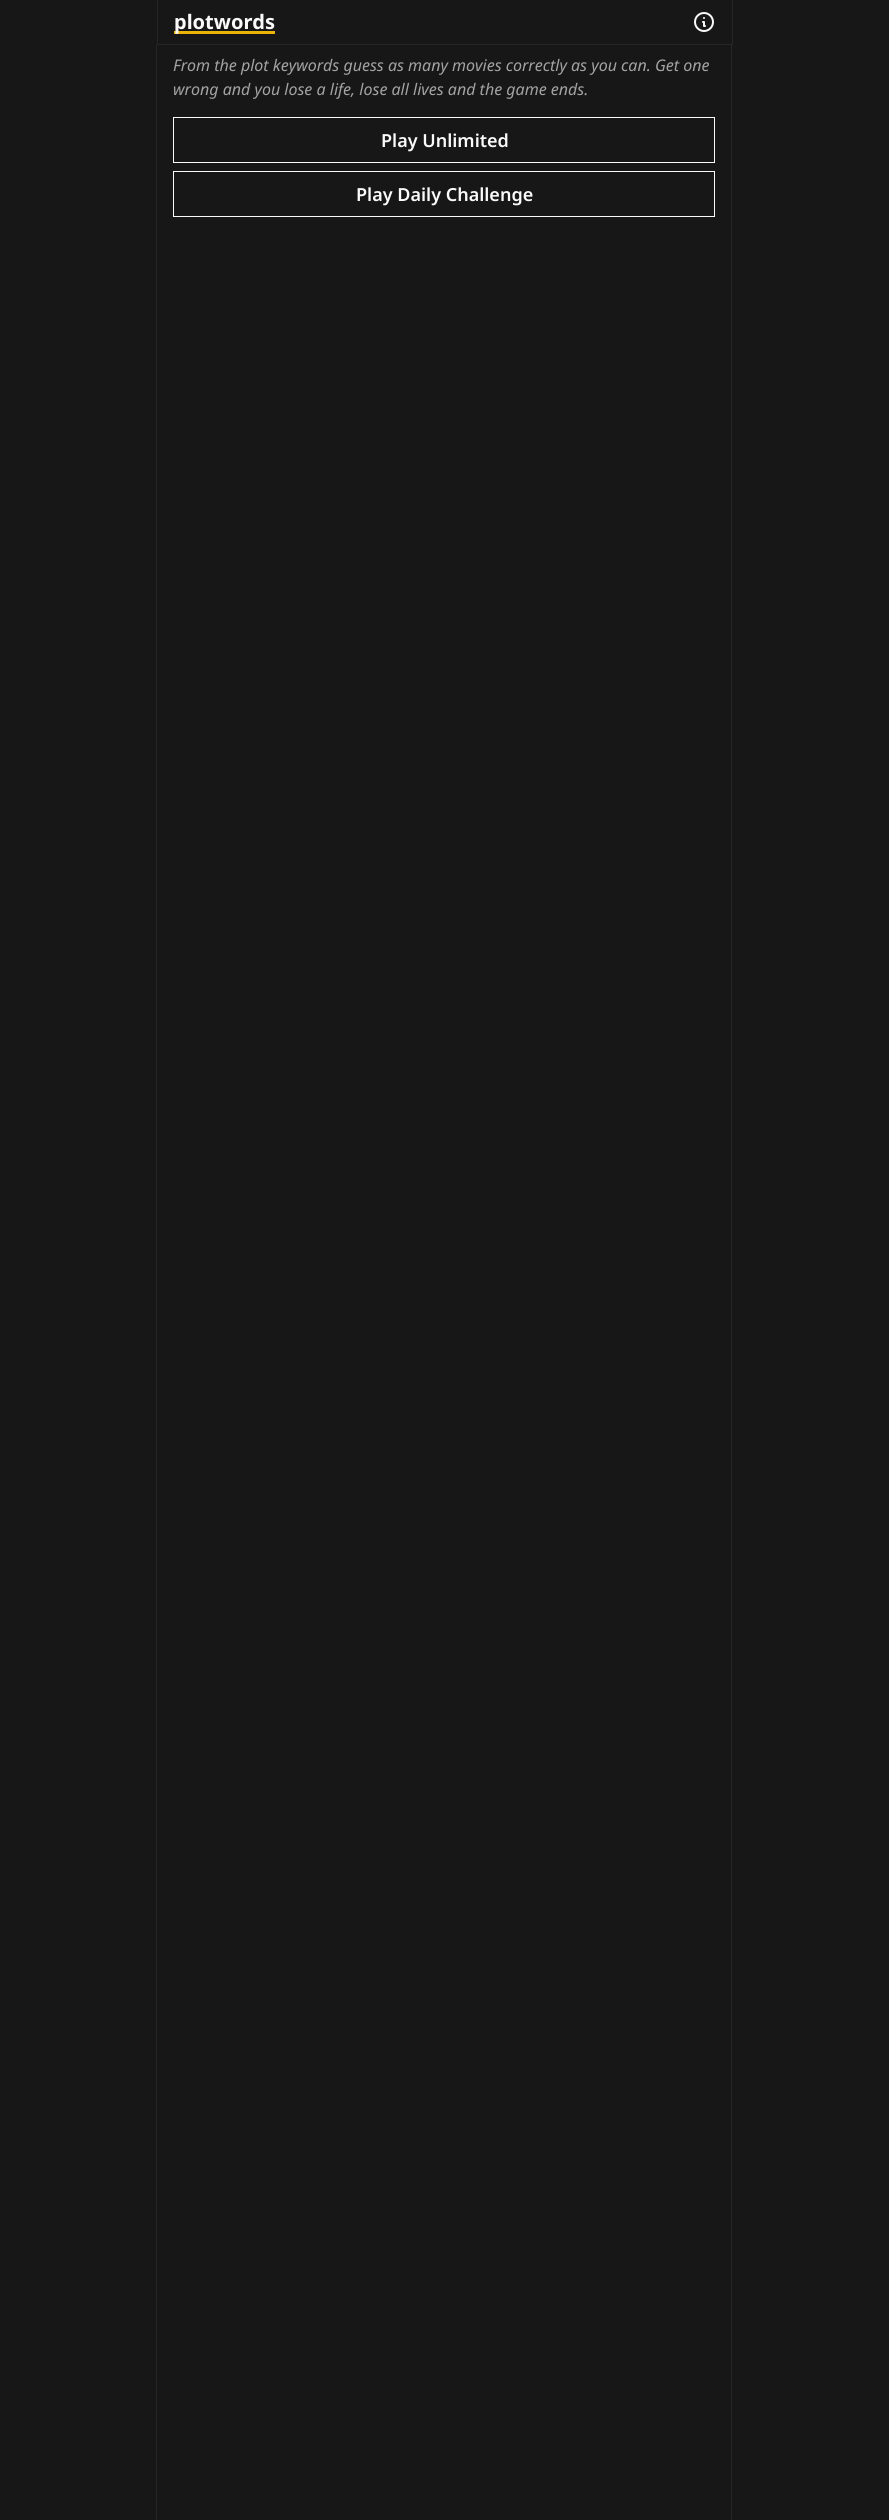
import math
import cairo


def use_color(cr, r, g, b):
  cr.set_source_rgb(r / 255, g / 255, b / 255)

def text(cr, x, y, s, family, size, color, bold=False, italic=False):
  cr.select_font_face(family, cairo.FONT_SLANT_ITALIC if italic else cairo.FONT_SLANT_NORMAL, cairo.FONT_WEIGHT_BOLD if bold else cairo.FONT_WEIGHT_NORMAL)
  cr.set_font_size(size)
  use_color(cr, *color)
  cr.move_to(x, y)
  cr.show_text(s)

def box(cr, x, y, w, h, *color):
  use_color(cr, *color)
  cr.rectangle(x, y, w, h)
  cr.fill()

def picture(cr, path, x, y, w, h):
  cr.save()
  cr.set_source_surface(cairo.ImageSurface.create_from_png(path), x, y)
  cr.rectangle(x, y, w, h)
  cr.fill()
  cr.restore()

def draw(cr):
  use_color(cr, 23, 23, 23)
  cr.paint()
  box(cr, 732, 0, 1, 45, 38, 38, 38)
  box(cr, 157, 44, 576, 1, 38, 38, 38)
  box(cr, 157, 0, 1, 45, 38, 38, 38)
  box(cr, 174, 31, 101, 3, 234, 179, 8)
  picture(cr, "img_01.png", 694, 12, 20, 20)
  box(cr, 731, 45, 1, 2475, 38, 38, 38)
  box(cr, 156, 45, 1, 2475, 38, 38, 38)
  cr.rectangle(173.5, 117.5, 541, 45)
  use_color(cr, 250, 250, 250)
  cr.set_line_width(1)
  cr.stroke()
  cr.rectangle(173.5, 171.5, 541, 45)
  cr.stroke()
  text(cr, 174, 29, "plotwords", "Noto Sans", 20, (250, 250, 250), bold=True)
  text(cr, 173, 71, "From the plot keywords guess as many movies correctly as you can. Get one", "Noto Sans", 16, (163, 163, 163), italic=True)
  text(cr, 173, 95, "wrong and you lose a life, lose all lives and the game ends.", "Noto Sans", 16, (163, 163, 163), italic=True)
  text(cr, 381, 147, "Play Unlimited", "Noto Sans SemiBold", 18, (250, 250, 250))
  text(cr, 356, 201, "Play Daily Challenge", "Noto Sans SemiBold", 18, (250, 250, 250))


surface = cairo.ImageSurface(cairo.FORMAT_RGB24, 889, 2520)
cr = cairo.Context(surface)
options = cairo.FontOptions()
options.set_hint_metrics(cairo.HINT_METRICS_OFF)
options.set_hint_style(cairo.HINT_STYLE_NONE)
cr.set_font_options(options)
cr.set_miter_limit(4)
draw(cr)
surface.write_to_png("out.png")
